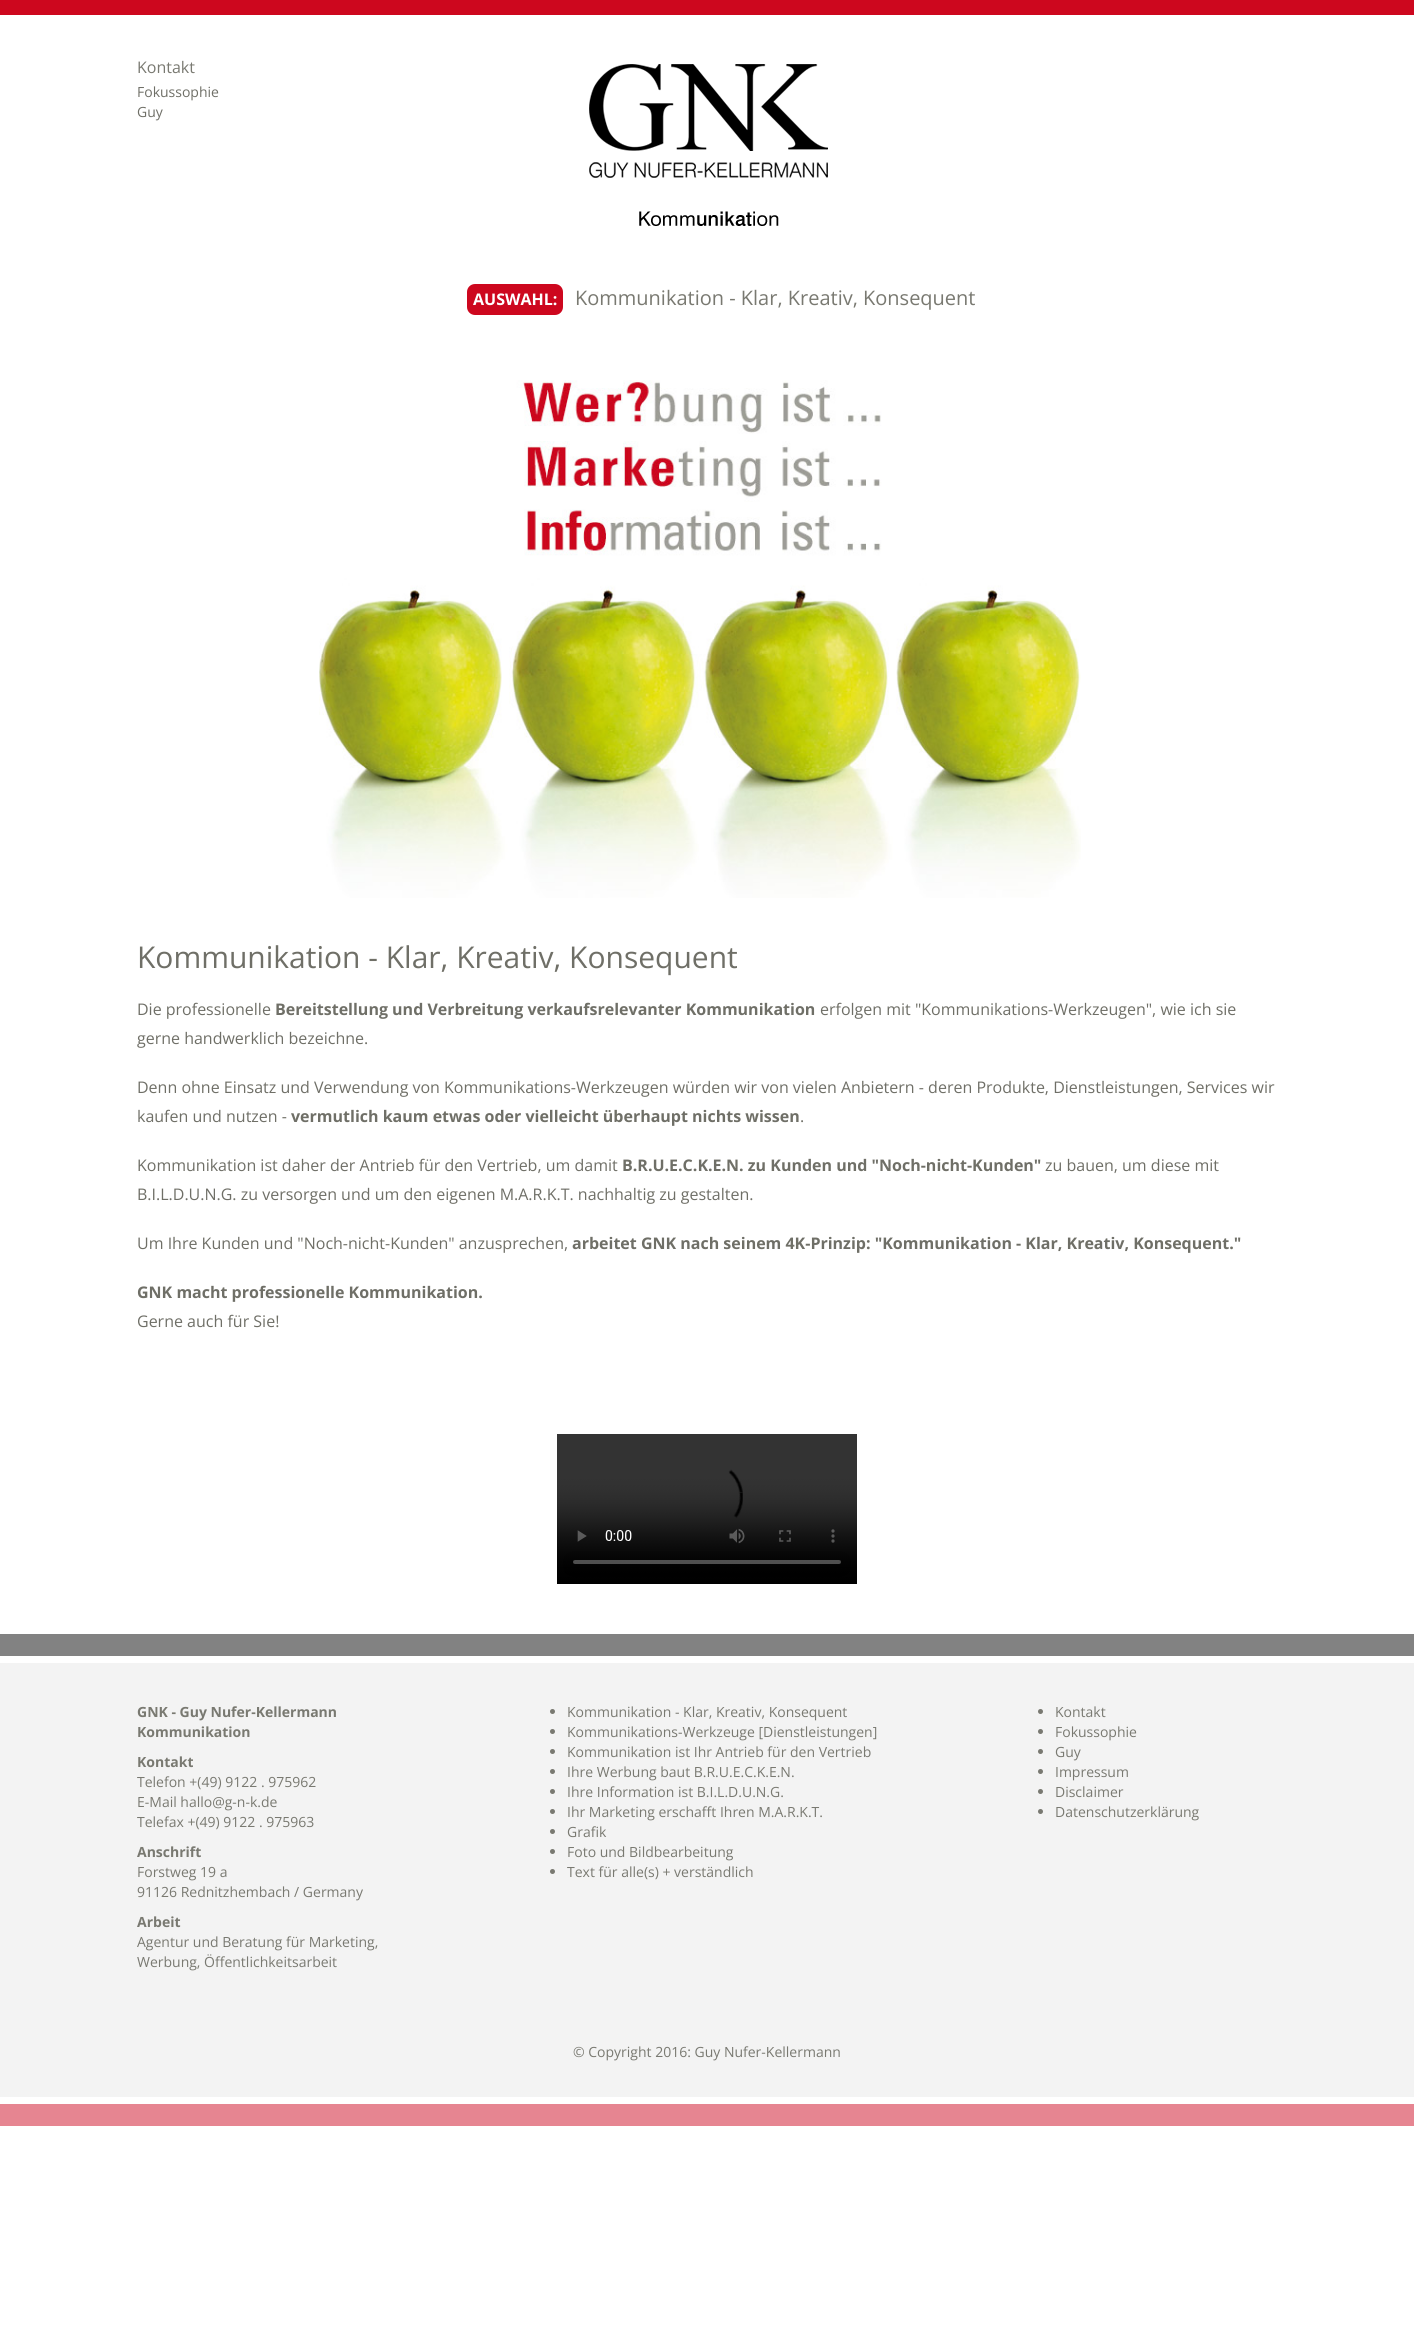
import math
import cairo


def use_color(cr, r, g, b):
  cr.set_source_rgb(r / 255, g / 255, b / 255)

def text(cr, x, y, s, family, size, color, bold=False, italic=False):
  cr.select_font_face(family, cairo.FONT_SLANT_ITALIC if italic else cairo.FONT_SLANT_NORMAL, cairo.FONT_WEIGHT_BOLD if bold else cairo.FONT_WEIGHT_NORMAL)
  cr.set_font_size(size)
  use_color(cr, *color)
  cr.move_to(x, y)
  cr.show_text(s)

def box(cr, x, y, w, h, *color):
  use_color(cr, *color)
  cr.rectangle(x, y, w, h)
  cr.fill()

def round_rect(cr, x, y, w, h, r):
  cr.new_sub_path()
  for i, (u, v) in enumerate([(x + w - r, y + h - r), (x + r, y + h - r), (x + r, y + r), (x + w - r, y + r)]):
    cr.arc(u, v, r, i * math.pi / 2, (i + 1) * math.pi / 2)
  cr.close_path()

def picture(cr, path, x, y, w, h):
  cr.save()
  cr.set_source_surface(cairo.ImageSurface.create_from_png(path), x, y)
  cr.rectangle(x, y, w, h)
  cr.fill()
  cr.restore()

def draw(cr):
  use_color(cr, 255, 255, 255)
  cr.paint()
  box(cr, 0, 0, 1414, 15, 205, 7, 30)
  picture(cr, "img_01.png", 589, 64, 239, 162)
  round_rect(cr, 467, 284, 96, 31, 8)
  cr.fill()
  picture(cr, "img_02.png", 319, 380, 762, 518)
  picture(cr, "img_03.png", 557, 1434, 300, 150)
  box(cr, 0, 1634, 1414, 22, 130, 130, 130)
  box(cr, 0, 2104, 1414, 22, 230, 133, 145)
  box(cr, 0, 1663, 1414, 434, 243, 243, 243)
  use_color(cr, 121, 121, 113)
  cr.arc(552.5, 1711.5, 2.5, 0, 2 * math.pi)
  cr.fill()
  cr.arc(552.5, 1731.5, 2.5, 0, 2 * math.pi)
  cr.fill()
  cr.arc(552.5, 1751.5, 2.5, 0, 2 * math.pi)
  cr.fill()
  cr.arc(552.5, 1771.5, 2.5, 0, 2 * math.pi)
  cr.fill()
  cr.arc(552.5, 1791.5, 2.5, 0, 2 * math.pi)
  cr.fill()
  cr.arc(552.5, 1811.5, 2.5, 0, 2 * math.pi)
  cr.fill()
  cr.arc(552.5, 1831.5, 2.5, 0, 2 * math.pi)
  cr.fill()
  cr.arc(552.5, 1851.5, 2.5, 0, 2 * math.pi)
  cr.fill()
  cr.arc(552.5, 1871.5, 2.5, 0, 2 * math.pi)
  cr.fill()
  cr.arc(1040.5, 1711.5, 2.5, 0, 2 * math.pi)
  cr.fill()
  cr.arc(1040.5, 1731.5, 2.5, 0, 2 * math.pi)
  cr.fill()
  cr.arc(1040.5, 1751.5, 2.5, 0, 2 * math.pi)
  cr.fill()
  cr.arc(1040.5, 1771.5, 2.5, 0, 2 * math.pi)
  cr.fill()
  cr.arc(1040.5, 1791.5, 2.5, 0, 2 * math.pi)
  cr.fill()
  cr.arc(1040.5, 1811.5, 2.5, 0, 2 * math.pi)
  cr.fill()
  text(cr, 137, 73, "Kontakt", "Open Sans", 16, (121, 121, 113))
  text(cr, 137, 97, "Fokussophie", "Open Sans", 14, (111, 111, 103))
  text(cr, 137, 117, "Guy", "Open Sans", 14, (111, 111, 103))
  text(cr, 473, 305, "AUSWAHL:", "Open Sans", 16, (255, 255, 255), bold=True)
  text(cr, 575, 305, "Kommunikation - Klar, Kreativ, Konsequent", "Open Sans", 20, (121, 121, 113))
  text(cr, 137, 968, "Kommunikation - Klar, Kreativ, Konsequent", "Open Sans", 30, (111, 111, 103))
  text(cr, 137, 1015, "Die professionelle", "Open Sans", 16, (111, 111, 103))
  text(cr, 275, 1015, "Bereitstellung und Verbreitung verkaufsrelevanter Kommunikation", "Open Sans", 16, (111, 111, 103), bold=True)
  text(cr, 820, 1015, "erfolgen mit \"Kommunikations-Werkzeugen\", wie ich sie", "Open Sans", 16, (111, 111, 103))
  text(cr, 137, 1044, "gerne handwerklich bezeichne.", "Open Sans", 16, (111, 111, 103))
  text(cr, 137, 1093, "Denn ohne Einsatz und Verwendung von Kommunikations-Werkzeugen würden wir von vielen Anbietern - deren Produkte, Dienstleistungen, Services wir", "Open Sans", 16, (111, 111, 103))
  text(cr, 137, 1122, "kaufen und nutzen -", "Open Sans", 16, (111, 111, 103))
  text(cr, 291, 1122, "vermutlich kaum etwas oder vielleicht überhaupt nichts wissen", "Open Sans", 16, (111, 111, 103), bold=True)
  text(cr, 800, 1122, ".", "Open Sans", 16, (111, 111, 103))
  text(cr, 137, 1171, "Kommunikation ist daher der Antrieb für den Vertrieb, um damit", "Open Sans", 16, (111, 111, 103))
  text(cr, 622, 1171, "B.R.U.E.C.K.E.N. zu Kunden und \"Noch-nicht-Kunden\"", "Open Sans", 16, (111, 111, 103), bold=True)
  text(cr, 1045, 1171, "zu bauen, um diese mit", "Open Sans", 16, (111, 111, 103))
  text(cr, 137, 1200, "B.I.L.D.U.N.G. zu versorgen und um den eigenen M.A.R.K.T. nachhaltig zu gestalten.", "Open Sans", 16, (111, 111, 103))
  text(cr, 137, 1249, "Um Ihre Kunden und \"Noch-nicht-Kunden\" anzusprechen,", "Open Sans", 16, (111, 111, 103))
  text(cr, 572, 1249, "arbeitet GNK nach seinem 4K-Prinzip: \"Kommunikation - Klar, Kreativ, Konsequent.\"", "Open Sans", 16, (111, 111, 103), bold=True)
  text(cr, 137, 1298, "GNK macht professionelle Kommunikation.", "Open Sans", 16, (111, 111, 103), bold=True)
  text(cr, 137, 1327, "Gerne auch für Sie!", "Open Sans", 16, (111, 111, 103))
  text(cr, 137, 1717, "GNK - Guy Nufer-Kellermann", "Open Sans", 14, (121, 121, 113), bold=True)
  text(cr, 137, 1737, "Kommunikation", "Open Sans", 14, (121, 121, 113), bold=True)
  text(cr, 137, 1767, "Kontakt", "Open Sans", 14, (121, 121, 113), bold=True)
  text(cr, 137, 1787, "Telefon +(49) 9122 . 975962", "Open Sans", 14, (121, 121, 113))
  text(cr, 137, 1807, "E-Mail hallo@g-n-k.de", "Open Sans", 14, (121, 121, 113))
  text(cr, 137, 1827, "Telefax +(49) 9122 . 975963", "Open Sans", 14, (121, 121, 113))
  text(cr, 137, 1857, "Anschrift", "Open Sans", 14, (121, 121, 113), bold=True)
  text(cr, 137, 1877, "Forstweg 19 a", "Open Sans", 14, (121, 121, 113))
  text(cr, 137, 1897, "91126 Rednitzhembach / Germany", "Open Sans", 14, (121, 121, 113))
  text(cr, 137, 1927, "Arbeit", "Open Sans", 14, (121, 121, 113), bold=True)
  text(cr, 137, 1947, "Agentur und Beratung für Marketing,", "Open Sans", 14, (121, 121, 113))
  text(cr, 137, 1967, "Werbung, Öffentlichkeitsarbeit", "Open Sans", 14, (121, 121, 113))
  text(cr, 567, 1717, "Kommunikation - Klar, Kreativ, Konsequent", "Open Sans", 14, (121, 121, 113))
  text(cr, 567, 1737, "Kommunikations-Werkzeuge [Dienstleistungen]", "Open Sans", 14, (121, 121, 113))
  text(cr, 567, 1757, "Kommunikation ist Ihr Antrieb für den Vertrieb", "Open Sans", 14, (121, 121, 113))
  text(cr, 567, 1777, "Ihre Werbung baut B.R.U.E.C.K.E.N.", "Open Sans", 14, (121, 121, 113))
  text(cr, 567, 1797, "Ihre Information ist B.I.L.D.U.N.G.", "Open Sans", 14, (121, 121, 113))
  text(cr, 567, 1817, "Ihr Marketing erschafft Ihren M.A.R.K.T.", "Open Sans", 14, (121, 121, 113))
  text(cr, 567, 1837, "Grafik", "Open Sans", 14, (121, 121, 113))
  text(cr, 567, 1857, "Foto und Bildbearbeitung", "Open Sans", 14, (121, 121, 113))
  text(cr, 567, 1877, "Text für alle(s) + verständlich", "Open Sans", 14, (121, 121, 113))
  text(cr, 1055, 1717, "Kontakt", "Open Sans", 14, (121, 121, 113))
  text(cr, 1055, 1737, "Fokussophie", "Open Sans", 14, (121, 121, 113))
  text(cr, 1055, 1757, "Guy", "Open Sans", 14, (121, 121, 113))
  text(cr, 1055, 1777, "Impressum", "Open Sans", 14, (121, 121, 113))
  text(cr, 1055, 1797, "Disclaimer", "Open Sans", 14, (121, 121, 113))
  text(cr, 1055, 1817, "Datenschutzerklärung", "Open Sans", 14, (121, 121, 113))
  text(cr, 573, 2057, "© Copyright 2016: Guy Nufer-Kellermann", "Open Sans", 14, (121, 121, 113))


surface = cairo.ImageSurface(cairo.FORMAT_RGB24, 1414, 2331)
cr = cairo.Context(surface)
options = cairo.FontOptions()
options.set_hint_metrics(cairo.HINT_METRICS_OFF)
options.set_hint_style(cairo.HINT_STYLE_NONE)
cr.set_font_options(options)
cr.set_miter_limit(4)
draw(cr)
surface.write_to_png("out.png")
